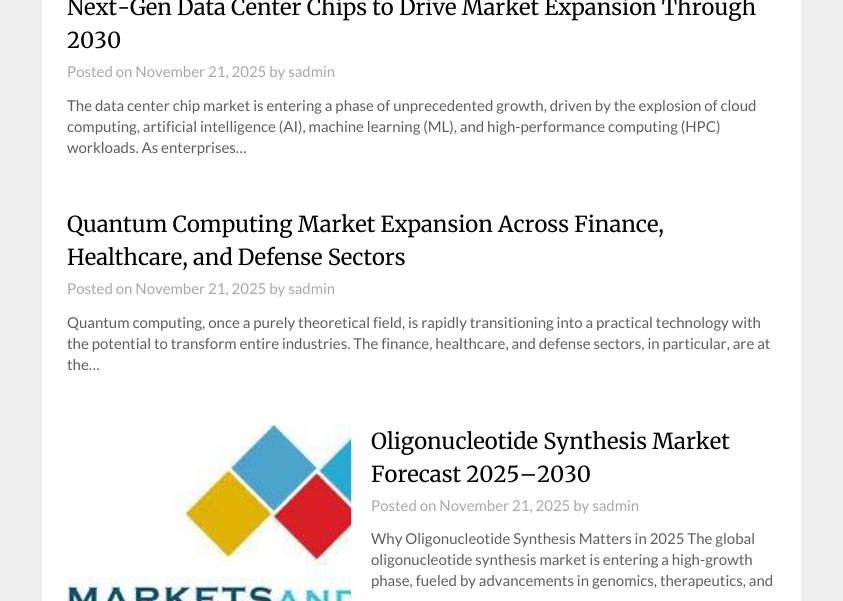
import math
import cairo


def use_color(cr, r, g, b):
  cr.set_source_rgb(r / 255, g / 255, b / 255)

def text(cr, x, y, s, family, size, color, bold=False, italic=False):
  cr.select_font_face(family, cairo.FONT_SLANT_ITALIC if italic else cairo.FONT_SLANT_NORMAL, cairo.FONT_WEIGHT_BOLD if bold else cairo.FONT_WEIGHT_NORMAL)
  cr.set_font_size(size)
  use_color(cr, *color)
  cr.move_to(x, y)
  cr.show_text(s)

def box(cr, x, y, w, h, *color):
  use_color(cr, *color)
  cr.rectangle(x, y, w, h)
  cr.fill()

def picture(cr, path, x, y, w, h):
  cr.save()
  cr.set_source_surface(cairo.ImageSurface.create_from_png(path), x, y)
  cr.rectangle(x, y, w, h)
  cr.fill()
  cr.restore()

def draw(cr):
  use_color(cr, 238, 238, 238)
  cr.paint()
  box(cr, 42, 0, 759, 601, 255, 255, 255)
  picture(cr, "img_01.png", 67, 425, 284, 176)
  text(cr, 67, 15, "Next-Gen Data Center Chips to Drive Market Expansion Through", "Merriweather", 22, (0, 0, 0))
  text(cr, 67, 48, "2030", "Merriweather", 22, (0, 0, 0))
  text(cr, 67, 77, "Posted on November 21, 2025 by sadmin", "Lato", 15, (168, 168, 168))
  text(cr, 67, 111, "The data center chip market is entering a phase of unprecedented growth, driven by the explosion of cloud", "Lato", 15, (94, 94, 94))
  text(cr, 67, 132, "computing, artificial intelligence (AI), machine learning (ML), and high-performance computing (HPC)", "Lato", 15, (94, 94, 94))
  text(cr, 67, 153, "workloads. As enterprises…", "Lato", 15, (94, 94, 94))
  text(cr, 67, 232, "Quantum Computing Market Expansion Across Finance,", "Merriweather", 22, (0, 0, 0))
  text(cr, 67, 265, "Healthcare, and Defense Sectors", "Merriweather", 22, (0, 0, 0))
  text(cr, 67, 294, "Posted on November 21, 2025 by sadmin", "Lato", 15, (168, 168, 168))
  text(cr, 67, 328, "Quantum computing, once a purely theoretical field, is rapidly transitioning into a practical technology with", "Lato", 15, (94, 94, 94))
  text(cr, 67, 349, "the potential to transform entire industries. The finance, healthcare, and defense sectors, in particular, are at", "Lato", 15, (94, 94, 94))
  text(cr, 67, 370, "the…", "Lato", 15, (94, 94, 94))
  text(cr, 371, 449, "Oligonucleotide Synthesis Market", "Merriweather", 22, (0, 0, 0))
  text(cr, 371, 482, "Forecast 2025–2030", "Merriweather", 22, (0, 0, 0))
  text(cr, 371, 511, "Posted on November 21, 2025 by sadmin", "Lato", 15, (168, 168, 168))
  text(cr, 371, 544, "Why Oligonucleotide Synthesis Matters in 2025 The global", "Lato", 15, (94, 94, 94))
  text(cr, 371, 565, "oligonucleotide synthesis market is entering a high-growth", "Lato", 15, (94, 94, 94))
  text(cr, 371, 586, "phase, fueled by advancements in genomics, therapeutics, and", "Lato", 15, (94, 94, 94))


surface = cairo.ImageSurface(cairo.FORMAT_RGB24, 843, 601)
cr = cairo.Context(surface)
options = cairo.FontOptions()
options.set_hint_metrics(cairo.HINT_METRICS_OFF)
options.set_hint_style(cairo.HINT_STYLE_NONE)
cr.set_font_options(options)
cr.set_miter_limit(4)
draw(cr)
surface.write_to_png("out.png")
